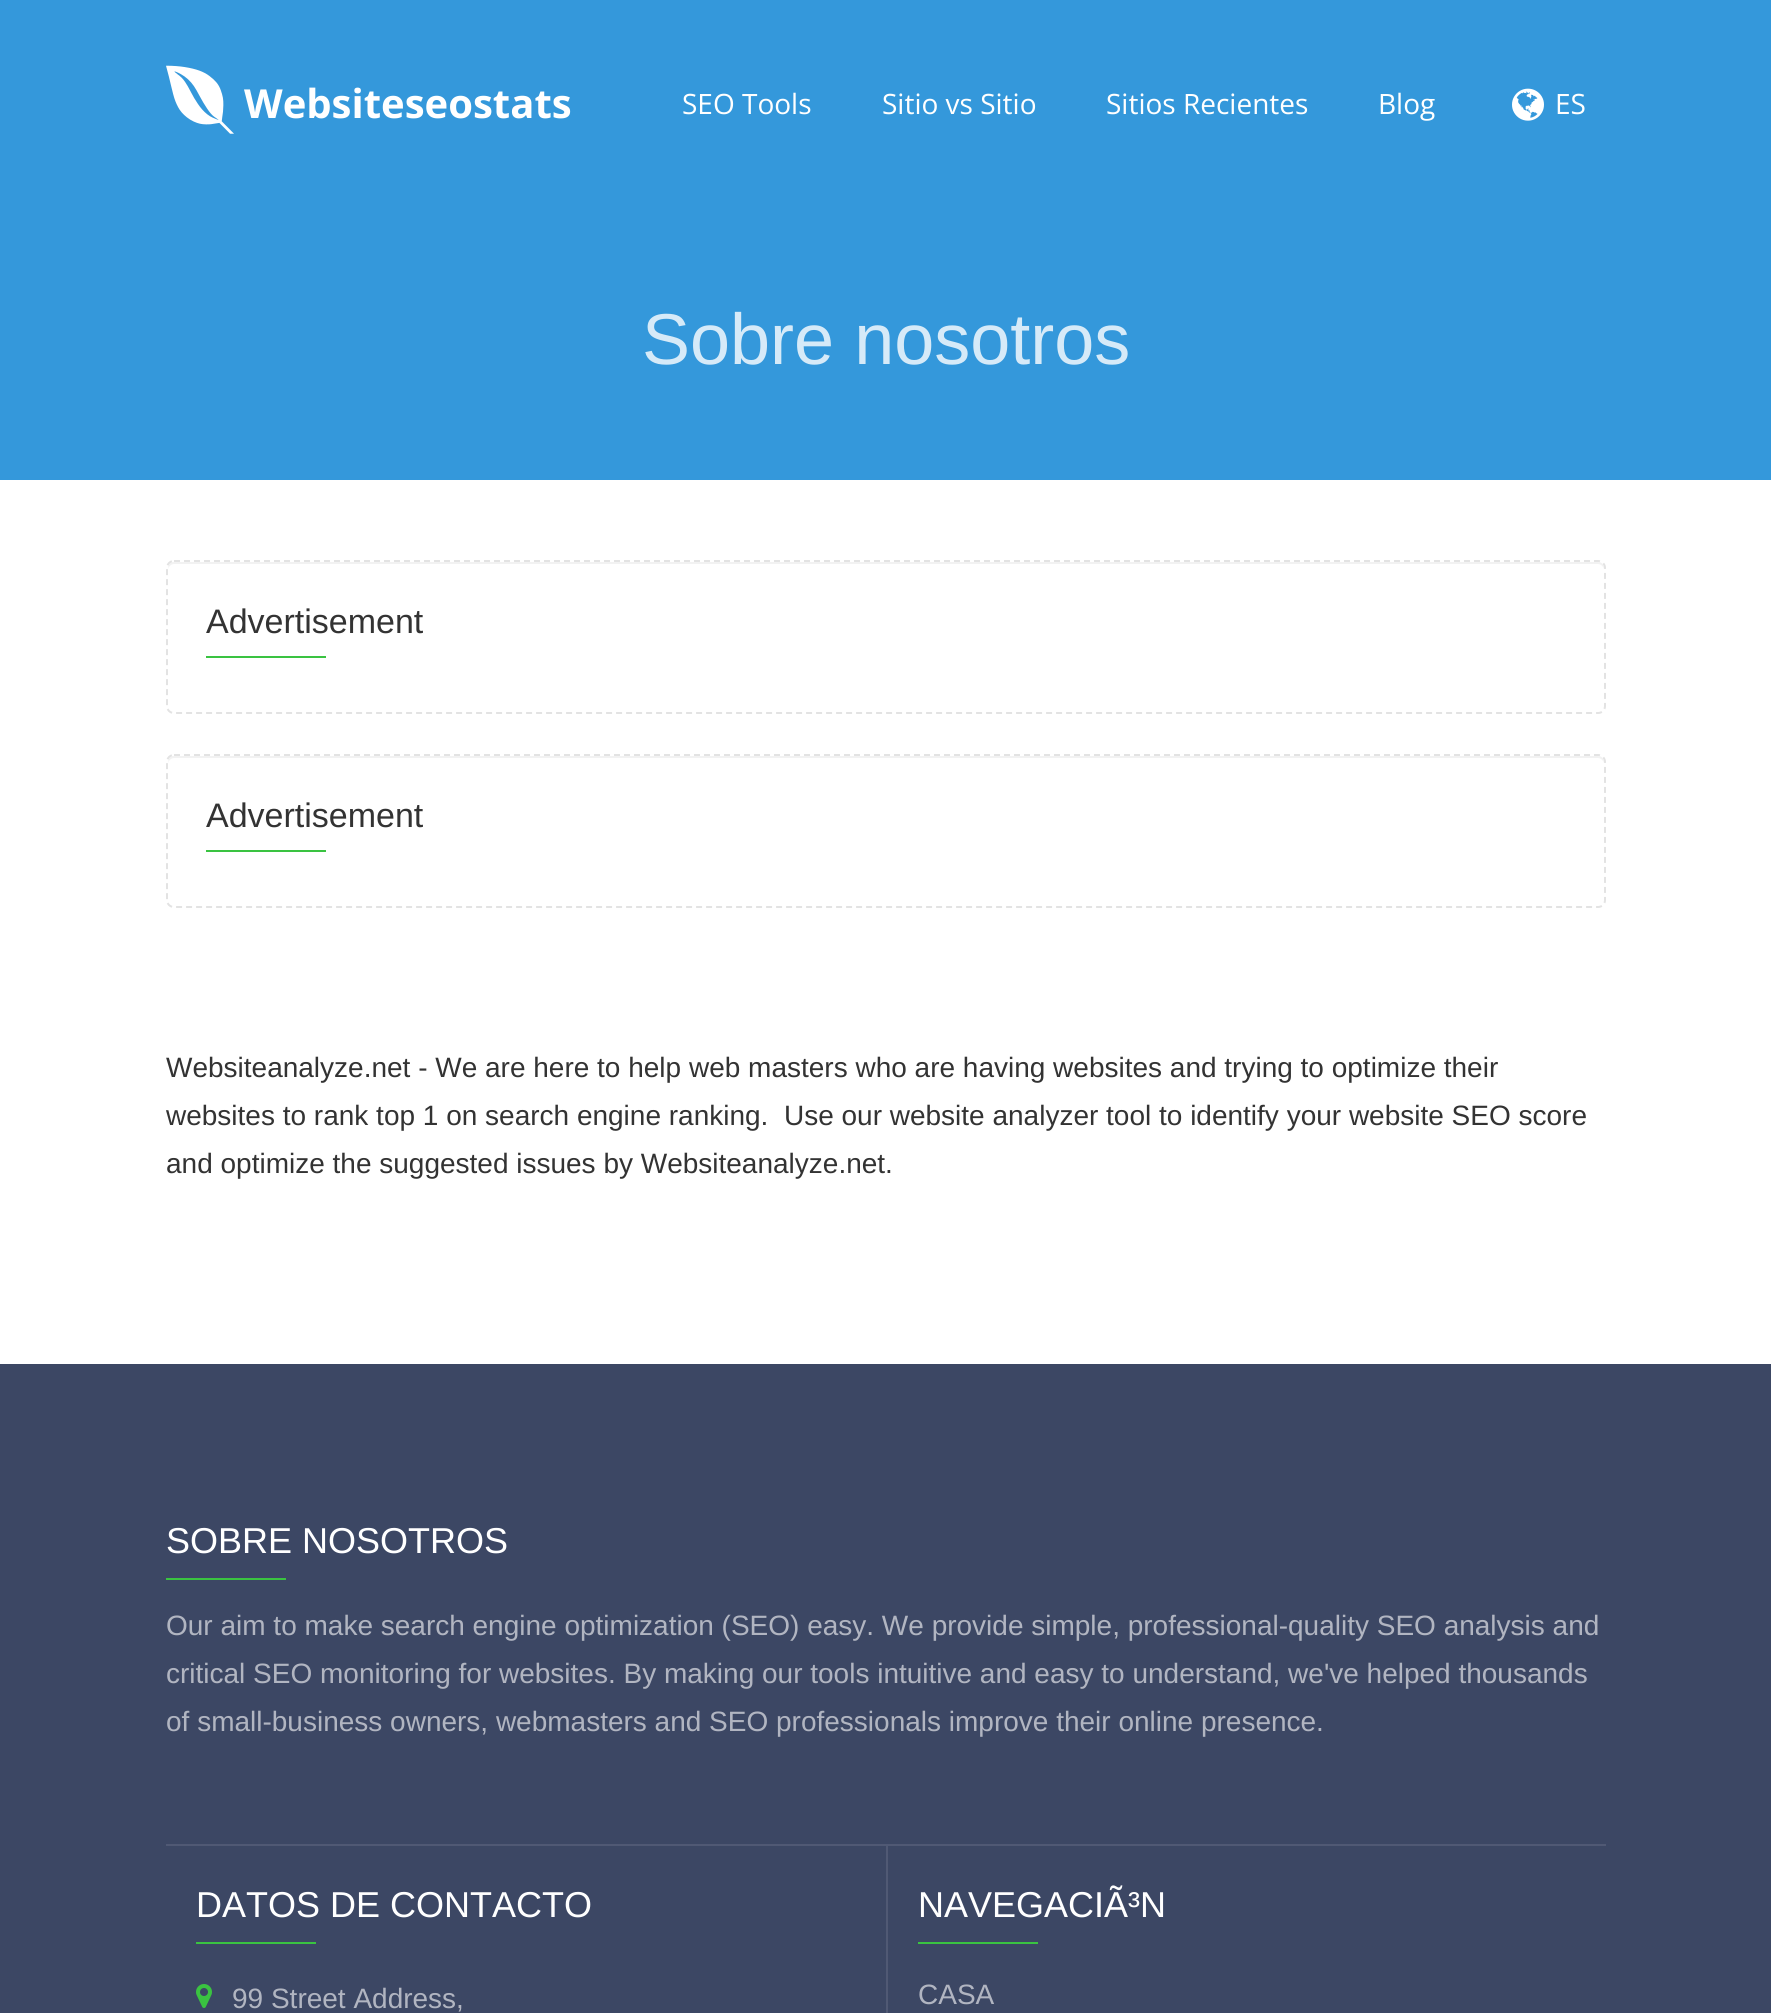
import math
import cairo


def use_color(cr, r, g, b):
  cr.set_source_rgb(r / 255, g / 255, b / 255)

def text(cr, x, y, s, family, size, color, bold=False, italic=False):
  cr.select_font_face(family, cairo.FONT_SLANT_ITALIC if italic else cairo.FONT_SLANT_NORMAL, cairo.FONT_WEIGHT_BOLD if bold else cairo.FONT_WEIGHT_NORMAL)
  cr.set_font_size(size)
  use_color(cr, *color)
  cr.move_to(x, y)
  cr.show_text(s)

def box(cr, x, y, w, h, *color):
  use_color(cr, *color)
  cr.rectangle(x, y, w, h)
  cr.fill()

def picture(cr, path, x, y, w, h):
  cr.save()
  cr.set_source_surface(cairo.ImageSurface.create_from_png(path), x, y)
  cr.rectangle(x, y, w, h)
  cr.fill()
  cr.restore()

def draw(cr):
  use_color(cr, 255, 255, 255)
  cr.paint()
  box(cr, 0, 0, 1771, 480, 52, 152, 219)
  picture(cr, "img_01.png", 166, 65, 68, 69)
  picture(cr, "img_02.png", 1512, 88, 32, 33)
  use_color(cr, 242, 242, 242)
  cr.new_path()
  cr.move_to(174, 564)
  cr.line_to(1598, 564)
  cr.curve_to(1601, 564, 1604, 567, 1604, 570)
  cr.curve_to(1604, 566, 1603, 562, 1598, 562)
  cr.line_to(174, 562)
  cr.curve_to(169, 562, 168, 566, 168, 570)
  cr.curve_to(168, 567, 171, 564, 174, 564)
  cr.close_path()
  cr.fill()
  cr.new_path()
  cr.move_to(174, 561)
  cr.line_to(1598, 561)
  cr.curve_to(1602, 561, 1605, 564, 1605, 568)
  cr.line_to(1605, 706)
  cr.curve_to(1605, 710, 1602, 713, 1598, 713)
  cr.line_to(174, 713)
  cr.curve_to(170, 713, 167, 710, 167, 706)
  cr.line_to(167, 568)
  cr.curve_to(167, 564, 170, 561, 174, 561)
  cr.close_path()
  use_color(cr, 227, 227, 227)
  cr.set_dash([6, 4])
  cr.stroke()
  box(cr, 206, 656, 120, 2, 58, 195, 65)
  use_color(cr, 242, 242, 242)
  cr.new_path()
  cr.move_to(174, 758)
  cr.line_to(1598, 758)
  cr.curve_to(1601, 758, 1604, 761, 1604, 764)
  cr.curve_to(1604, 760, 1603, 756, 1598, 756)
  cr.line_to(174, 756)
  cr.curve_to(169, 756, 168, 760, 168, 764)
  cr.curve_to(168, 761, 171, 758, 174, 758)
  cr.close_path()
  cr.fill()
  cr.new_path()
  cr.move_to(174, 755)
  cr.line_to(1598, 755)
  cr.curve_to(1602, 755, 1605, 758, 1605, 762)
  cr.line_to(1605, 900)
  cr.curve_to(1605, 904, 1602, 907, 1598, 907)
  cr.line_to(174, 907)
  cr.curve_to(170, 907, 167, 904, 167, 900)
  cr.line_to(167, 762)
  cr.curve_to(167, 758, 170, 755, 174, 755)
  cr.close_path()
  use_color(cr, 227, 227, 227)
  cr.stroke()
  box(cr, 206, 850, 120, 2, 58, 195, 65)
  box(cr, 0, 1364, 1771, 649, 60, 71, 100)
  box(cr, 166, 1844, 1440, 2, 80, 89, 116)
  box(cr, 166, 1578, 120, 2, 58, 195, 65)
  box(cr, 196, 1942, 120, 2, 58, 195, 65)
  picture(cr, "img_03.png", 196, 1984, 16, 24)
  box(cr, 886, 1846, 2, 167, 80, 89, 116)
  box(cr, 918, 1942, 120, 2, 58, 195, 65)
  text(cr, 244, 118, "Websiteseostats", "Open Sans", 40, (255, 255, 255), bold=True)
  text(cr, 682, 114, "SEO Tools", "Open Sans", 28, (255, 255, 255))
  text(cr, 882, 114, "Sitio vs Sitio", "Open Sans", 28, (255, 255, 255))
  text(cr, 1106, 114, "Sitios Recientes", "Open Sans", 28, (255, 255, 255))
  text(cr, 1378, 114, "Blog", "Open Sans", 28, (255, 255, 255))
  text(cr, 1555, 114, "ES", "Open Sans", 28, (255, 255, 255))
  text(cr, 642, 364, "Sobre nosotros", "Liberation Sans", 72, (214, 234, 248))
  text(cr, 206, 633, "Advertisement", "Liberation Sans", 34, (51, 51, 51))
  text(cr, 206, 827, "Advertisement", "Liberation Sans", 34, (51, 51, 51))
  text(cr, 166, 1077, "Websiteanalyze.net - We are here to help web masters who are having websites and trying to optimize their", "Liberation Sans", 28, (51, 51, 51))
  text(cr, 166, 1125, "websites to rank top 1 on search engine ranking.  Use our website analyzer tool to identify your website SEO score", "Liberation Sans", 28, (51, 51, 51))
  text(cr, 166, 1173, "and optimize the suggested issues by Websiteanalyze.net.", "Liberation Sans", 28, (51, 51, 51))
  text(cr, 166, 1553, "SOBRE NOSOTROS", "Liberation Sans", 36, (255, 255, 255))
  text(cr, 166, 1635, "Our aim to make search engine optimization (SEO) easy. We provide simple, professional-quality SEO analysis and", "Liberation Sans", 28, (177, 181, 193))
  text(cr, 166, 1683, "critical SEO monitoring for websites. By making our tools intuitive and easy to understand, we've helped thousands", "Liberation Sans", 28, (177, 181, 193))
  text(cr, 166, 1731, "of small-business owners, webmasters and SEO professionals improve their online presence.", "Liberation Sans", 28, (177, 181, 193))
  text(cr, 196, 1917, "DATOS DE CONTACTO", "Liberation Sans", 36, (255, 255, 255))
  text(cr, 232, 2008, "99 Street Address,", "Liberation Sans", 28, (177, 181, 193))
  text(cr, 918, 1917, "NAVEGACIÃ³N", "Liberation Sans", 36, (255, 255, 255))
  text(cr, 918, 2004, "CASA", "Liberation Sans", 28, (177, 181, 193))


surface = cairo.ImageSurface(cairo.FORMAT_RGB24, 1771, 2013)
cr = cairo.Context(surface)
options = cairo.FontOptions()
options.set_hint_metrics(cairo.HINT_METRICS_OFF)
options.set_hint_style(cairo.HINT_STYLE_NONE)
cr.set_font_options(options)
cr.set_miter_limit(4)
draw(cr)
surface.write_to_png("out.png")
